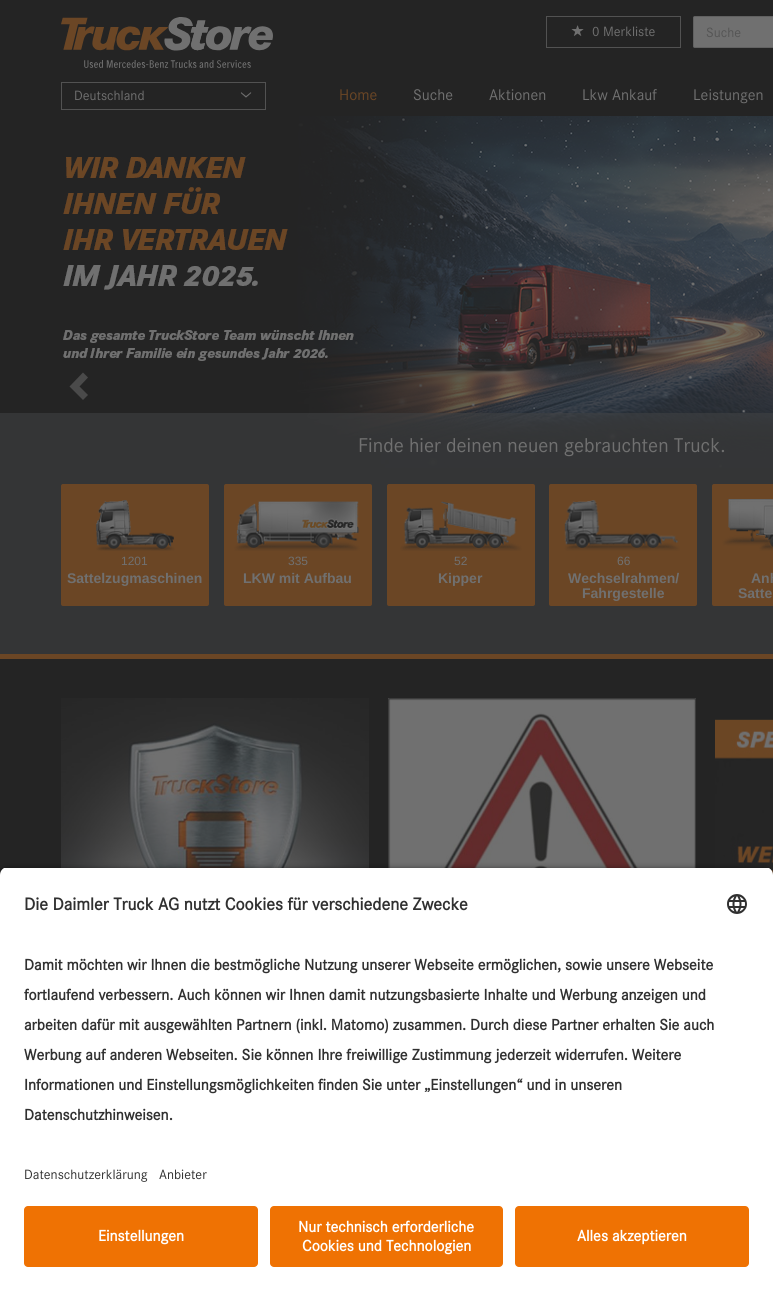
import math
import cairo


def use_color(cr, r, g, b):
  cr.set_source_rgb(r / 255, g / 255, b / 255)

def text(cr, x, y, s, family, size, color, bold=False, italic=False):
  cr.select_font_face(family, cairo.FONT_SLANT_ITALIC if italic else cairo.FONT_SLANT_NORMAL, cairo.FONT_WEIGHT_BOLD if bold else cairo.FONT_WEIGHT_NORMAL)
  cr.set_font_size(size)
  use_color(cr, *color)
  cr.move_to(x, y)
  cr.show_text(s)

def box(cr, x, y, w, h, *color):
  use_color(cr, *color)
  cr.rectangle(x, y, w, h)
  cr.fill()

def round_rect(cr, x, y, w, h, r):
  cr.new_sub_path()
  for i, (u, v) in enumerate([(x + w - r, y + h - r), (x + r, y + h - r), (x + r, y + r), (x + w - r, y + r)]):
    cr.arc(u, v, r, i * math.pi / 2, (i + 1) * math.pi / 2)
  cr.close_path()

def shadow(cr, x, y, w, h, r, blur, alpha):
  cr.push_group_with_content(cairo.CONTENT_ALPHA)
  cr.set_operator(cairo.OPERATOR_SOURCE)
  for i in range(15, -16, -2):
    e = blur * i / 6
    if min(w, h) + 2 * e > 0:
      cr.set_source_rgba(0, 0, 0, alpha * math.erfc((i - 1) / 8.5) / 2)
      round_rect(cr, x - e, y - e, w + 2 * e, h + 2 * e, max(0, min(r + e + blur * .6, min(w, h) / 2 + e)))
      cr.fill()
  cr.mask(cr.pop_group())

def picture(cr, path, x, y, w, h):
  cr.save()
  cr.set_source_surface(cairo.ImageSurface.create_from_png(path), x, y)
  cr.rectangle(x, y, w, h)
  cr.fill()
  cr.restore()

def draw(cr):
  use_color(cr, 36, 36, 36)
  cr.paint()
  picture(cr, "img_01.png", 61, 17, 212, 51)
  cr.rectangle(546.5, 16.5, 134, 31)
  use_color(cr, 82, 82, 82)
  cr.set_line_width(1)
  cr.stroke()
  picture(cr, "img_02.png", 571, 25, 13, 11)
  use_color(cr, 112, 112, 112)
  cr.new_path()
  cr.move_to(695, 16.5)
  cr.line_to(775.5, 16.5)
  cr.line_to(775.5, 47.5)
  cr.line_to(695, 47.5)
  cr.curve_to(694, 47.5, 693.5, 47, 693.5, 46)
  cr.line_to(693.5, 18)
  cr.curve_to(693.5, 17, 694, 16.5, 695, 16.5)
  cr.close_path()
  cr.fill_preserve()
  use_color(cr, 97, 97, 97)
  cr.stroke()
  cr.rectangle(61.5, 82.5, 204, 27)
  use_color(cr, 82, 82, 82)
  cr.stroke()
  picture(cr, "img_03.png", 240, 92, 12, 6)
  picture(cr, "img_04.png", 62, 116, 711, 352)
  use_color(cr, 74, 74, 74)
  cr.new_path()
  cr.move_to(88, 377.5)
  cr.line_to(79.5, 386.5)
  cr.line_to(88, 395)
  cr.line_to(83, 400)
  cr.line_to(69.5, 386.5)
  cr.line_to(83, 372.5)
  cr.close_path()
  cr.fill()
  cr.set_source_rgba(0.251, 0.259, 0.263, 0.6)
  cr.rectangle(0, 413, 773, 241)
  cr.fill()
  use_color(cr, 107, 70, 37)
  round_rect(cr, 61, 484, 148, 122, 2)
  cr.fill()
  picture(cr, "img_05.png", 96, 500, 79, 51)
  round_rect(cr, 224, 484, 148, 122, 2)
  cr.fill()
  picture(cr, "img_06.png", 234, 501, 126, 50)
  round_rect(cr, 387, 484, 148, 122, 2)
  cr.fill()
  picture(cr, "img_07.png", 400, 501, 122, 50)
  round_rect(cr, 549, 484, 148, 122, 2)
  cr.fill()
  picture(cr, "img_08.png", 564, 500, 116, 51)
  round_rect(cr, 712, 484, 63, 122, 2)
  cr.fill()
  picture(cr, "img_09.png", 722, 499, 51, 52)
  box(cr, 0, 654, 773, 5, 107, 70, 37)
  picture(cr, "img_10.png", 61, 698, 308, 170)
  picture(cr, "img_11.png", 388, 698, 308, 170)
  picture(cr, "img_12.png", 715, 719, 58, 156)
  use_color(cr, 0, 0, 0)
  shadow(cr, 0, 870, 773, 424, 8, 3.5, 0.8)
  cr.save()
  cr.new_path()
  cr.move_to(8, 867)
  cr.line_to(765, 867)
  cr.curve_to(769.5, 867, 773, 870.5, 773, 875)
  cr.line_to(773, 1152)
  cr.line_to(0, 1152)
  cr.line_to(0, 875)
  cr.curve_to(0, 870.5, 3.5, 867, 8, 867)
  cr.close_path()
  cr.clip()
  box(cr, 0, 868, 773, 284, 255, 255, 255)
  cr.restore()
  picture(cr, "img_13.png", 727, 894, 20, 20)
  box(cr, 0, 1152, 773, 139, 255, 255, 255)
  use_color(cr, 239, 114, 3)
  round_rect(cr, 24, 1206, 234, 61, 4)
  cr.fill()
  round_rect(cr, 270, 1206, 233, 61, 4)
  cr.fill()
  round_rect(cr, 515, 1206, 234, 61, 4)
  cr.fill()
  text(cr, 592, 36, "0 Merkliste", "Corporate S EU", 14, (112, 112, 112))
  text(cr, 706, 37, "Suche", "Corporate S EU", 14, (85, 85, 85))
  text(cr, 74, 100, "Deutschland", "Corporate S EU", 14, (112, 112, 112))
  text(cr, 339, 100, "Home", "Corporate S EU", 16, (107, 70, 37))
  text(cr, 413, 100, "Suche", "Corporate S EU", 16, (112, 112, 112))
  text(cr, 489, 100, "Aktionen", "Corporate S EU", 16, (112, 112, 112))
  text(cr, 582, 100, "Lkw Ankauf", "Corporate S EU", 16, (112, 112, 112))
  text(cr, 693, 100, "Leistungen", "Corporate S EU", 16, (112, 112, 112))
  text(cr, 358, 452, "Finde hier deinen neuen gebrauchten Truck.", "Corporate S EU", 20.75, (112, 112, 112))
  text(cr, 121, 565, "1201", "Liberation Sans", 12, (112, 112, 112))
  text(cr, 67, 583, "Sattelzugmaschinen", "Liberation Sans", 14, (112, 112, 112), bold=True)
  text(cr, 288, 565, "335", "Liberation Sans", 12, (112, 112, 112))
  text(cr, 243, 583, "LKW mit Aufbau", "Liberation Sans", 14, (112, 112, 112), bold=True)
  text(cr, 454, 565, "52", "Liberation Sans", 12, (112, 112, 112))
  text(cr, 438, 583, "Kipper", "Liberation Sans", 14, (112, 112, 112), bold=True)
  text(cr, 617, 565, "66", "Liberation Sans", 12, (112, 112, 112))
  text(cr, 568, 583, "Wechselrahmen/", "Liberation Sans", 14, (112, 112, 112), bold=True)
  text(cr, 582, 598, "Fahrgestelle", "Liberation Sans", 14, (112, 112, 112), bold=True)
  text(cr, 751, 583, "Anh", "Liberation Sans", 14, (112, 112, 112), bold=True)
  text(cr, 738, 598, "Satte", "Liberation Sans", 14, (112, 112, 112), bold=True)
  text(cr, 24, 910, "Die Daimler Truck AG nutzt Cookies für verschiedene Zwecke", "Corporate S EU", 18, (48, 48, 48), bold=True)
  text(cr, 24, 970, "Damit möchten wir Ihnen die bestmögliche Nutzung unserer Webseite ermöglichen, sowie unsere Webseite", "Corporate S EU", 16, (48, 48, 48), bold=True)
  text(cr, 24, 1000, "fortlaufend verbessern. Auch können wir Ihnen damit nutzungsbasierte Inhalte und Werbung anzeigen und", "Corporate S EU", 16, (48, 48, 48), bold=True)
  text(cr, 24, 1030, "arbeiten dafür mit ausgewählten Partnern (inkl. Matomo) zusammen. Durch diese Partner erhalten Sie auch", "Corporate S EU", 16, (48, 48, 48), bold=True)
  text(cr, 24, 1060, "Werbung auf anderen Webseiten. Sie können Ihre freiwillige Zustimmung jederzeit widerrufen. Weitere", "Corporate S EU", 16, (48, 48, 48), bold=True)
  text(cr, 24, 1090, "Informationen und Einstellungsmöglichkeiten finden Sie unter „Einstellungen“ und in unseren", "Corporate S EU", 16, (48, 48, 48), bold=True)
  text(cr, 24, 1120, "Datenschutzhinweisen.", "Corporate S EU", 16, (48, 48, 48), bold=True)
  text(cr, 24, 1179, "Datenschutzerklärung", "Corporate S EU", 14, (48, 48, 48))
  text(cr, 159, 1179, "Anbieter", "Corporate S EU", 14, (48, 48, 48))
  text(cr, 98, 1241, "Einstellungen", "Corporate S EU", 16, (255, 255, 255), bold=True)
  text(cr, 298, 1232, "Nur technisch erforderliche", "Corporate S EU", 16, (255, 255, 255), bold=True)
  text(cr, 302, 1251, "Cookies und Technologien", "Corporate S EU", 16, (255, 255, 255), bold=True)
  text(cr, 577, 1241, "Alles akzeptieren", "Corporate S EU", 16, (255, 255, 255), bold=True)


surface = cairo.ImageSurface(cairo.FORMAT_RGB24, 773, 1291)
cr = cairo.Context(surface)
options = cairo.FontOptions()
options.set_hint_metrics(cairo.HINT_METRICS_OFF)
options.set_hint_style(cairo.HINT_STYLE_NONE)
cr.set_font_options(options)
cr.set_miter_limit(4)
draw(cr)
surface.write_to_png("out.png")
